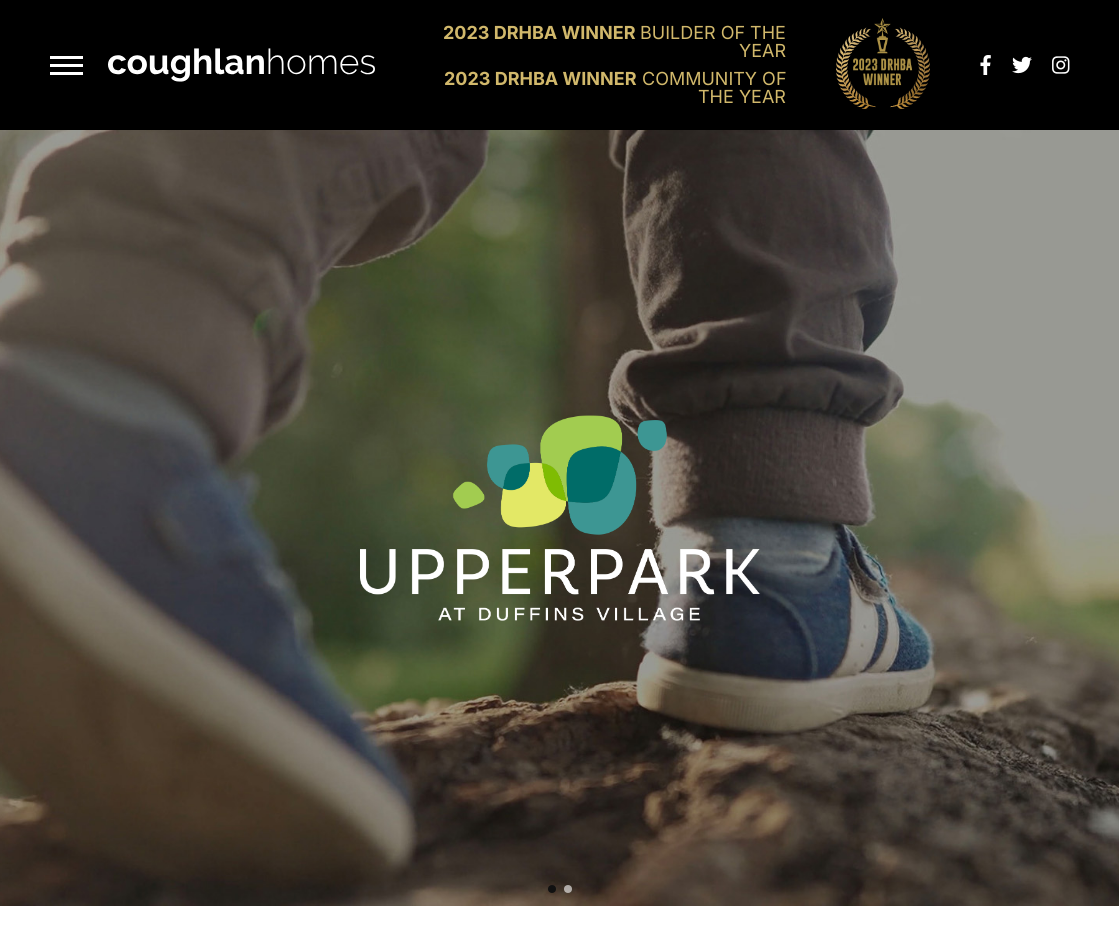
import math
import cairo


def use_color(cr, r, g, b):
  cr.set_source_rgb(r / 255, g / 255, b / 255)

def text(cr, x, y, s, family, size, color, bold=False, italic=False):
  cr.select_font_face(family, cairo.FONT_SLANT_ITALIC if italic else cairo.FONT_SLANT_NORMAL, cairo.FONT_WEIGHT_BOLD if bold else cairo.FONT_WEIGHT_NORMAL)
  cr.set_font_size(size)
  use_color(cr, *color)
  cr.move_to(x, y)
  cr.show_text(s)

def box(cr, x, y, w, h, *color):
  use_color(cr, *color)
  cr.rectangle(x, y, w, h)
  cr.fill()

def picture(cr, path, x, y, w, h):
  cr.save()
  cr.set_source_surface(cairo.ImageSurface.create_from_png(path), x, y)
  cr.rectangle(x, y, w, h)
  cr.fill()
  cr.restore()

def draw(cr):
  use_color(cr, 255, 255, 255)
  cr.paint()
  box(cr, 0, 0, 1119, 130, 0, 0, 0)
  box(cr, 50, 56, 33, 3, 255, 255, 255)
  box(cr, 50, 72, 33, 3, 255, 255, 255)
  box(cr, 50, 64, 33, 3, 255, 255, 255)
  picture(cr, "img_01.png", 108, 48, 267, 34)
  picture(cr, "img_02.png", 836, 18, 94, 91)
  picture(cr, "img_03.png", 980, 55, 11, 20)
  picture(cr, "img_04.png", 1012, 56, 20, 18)
  picture(cr, "img_05.png", 1052, 56, 18, 18)
  picture(cr, "img_06.png", 0, 130, 1119, 776)
  picture(cr, "img_07.png", 360, 415, 400, 206)
  use_color(cr, 17, 17, 17)
  cr.arc(552, 889, 4, 0, 2 * math.pi)
  cr.fill()
  cr.set_source_rgba(1, 1, 1, 0.6)
  cr.arc(568, 889, 4, 0, 2 * math.pi)
  cr.fill()
  text(cr, 443, 39, "2023 DRHBA WINNER", "Inter", 18, (209, 184, 107), bold=True)
  text(cr, 640, 39, "BUILDER OF THE", "Inter", 18, (209, 184, 107))
  text(cr, 739, 57, "YEAR", "Inter", 18, (209, 184, 107))
  text(cr, 444, 85, "2023 DRHBA WINNER", "Inter", 18, (209, 184, 107), bold=True)
  text(cr, 642, 85, "COMMUNITY OF", "Inter", 18, (209, 184, 107))
  text(cr, 698, 103, "THE YEAR", "Inter", 18, (209, 184, 107))


surface = cairo.ImageSurface(cairo.FORMAT_RGB24, 1119, 933)
cr = cairo.Context(surface)
options = cairo.FontOptions()
options.set_hint_metrics(cairo.HINT_METRICS_OFF)
options.set_hint_style(cairo.HINT_STYLE_NONE)
cr.set_font_options(options)
cr.set_miter_limit(4)
draw(cr)
surface.write_to_png("out.png")
